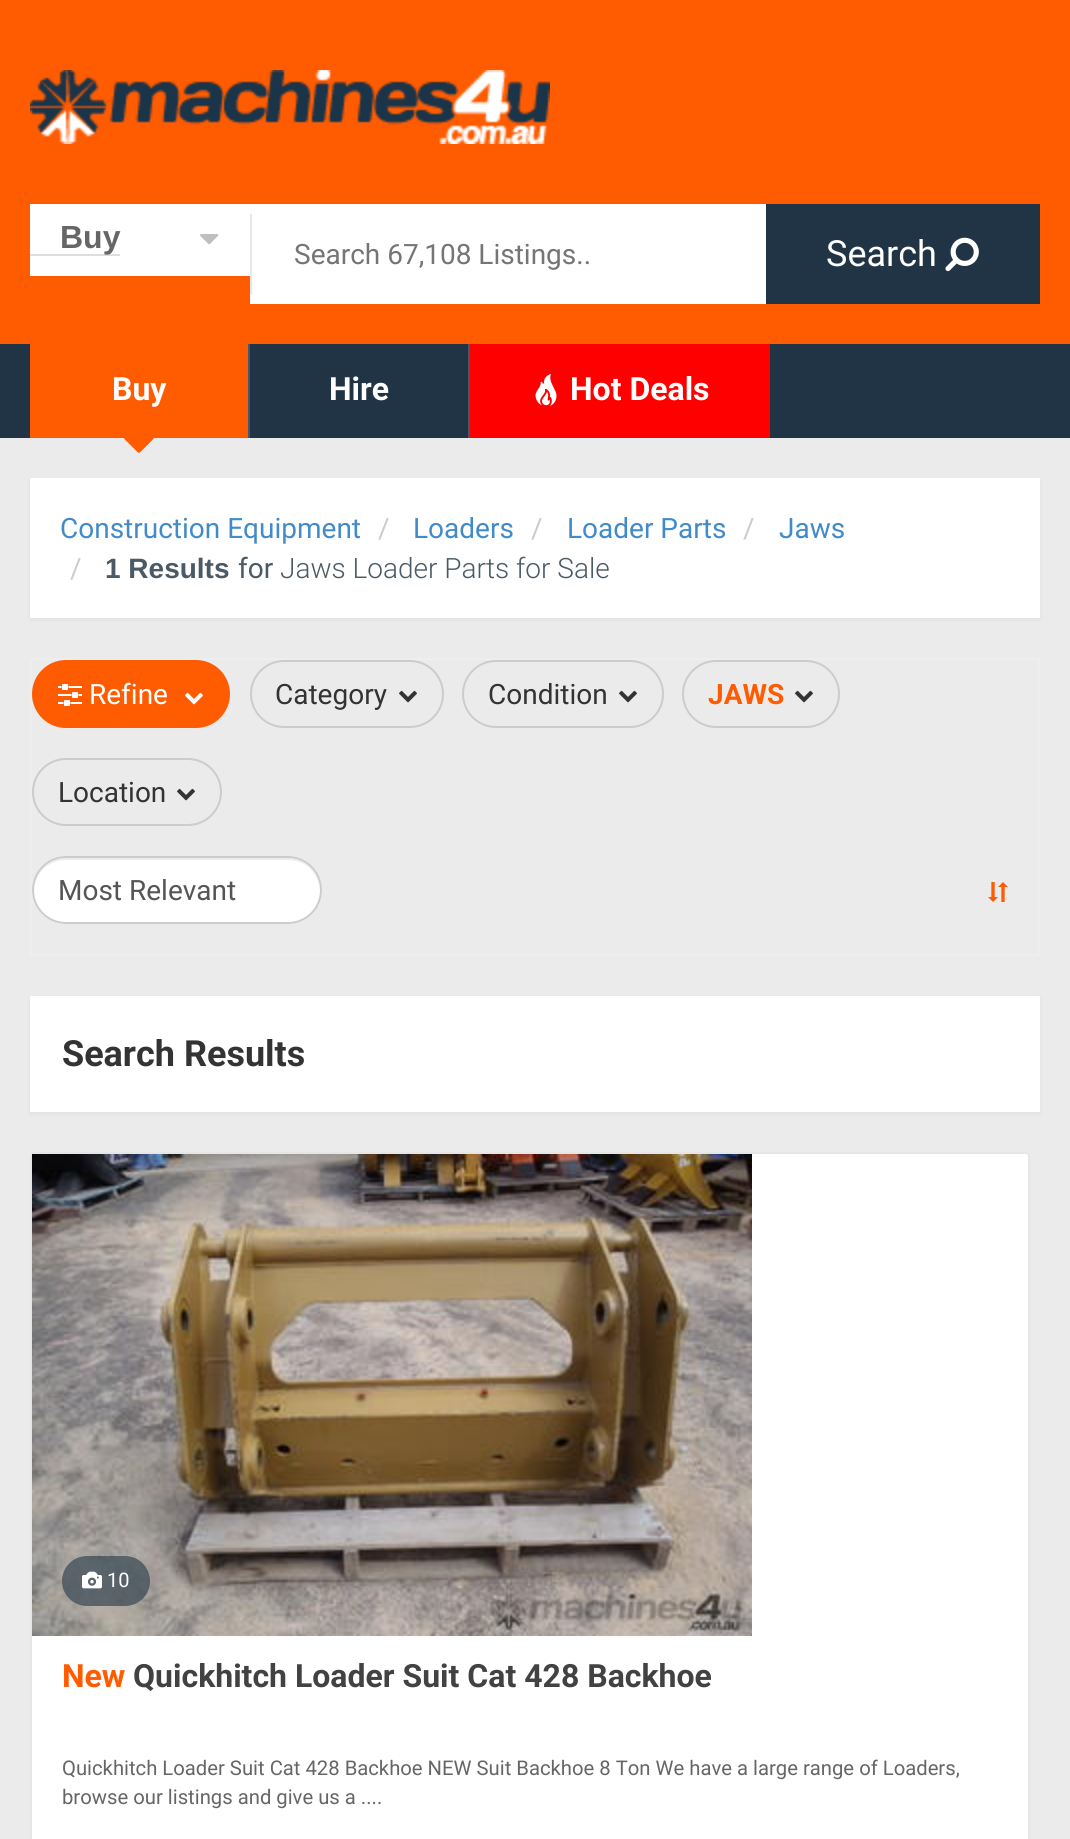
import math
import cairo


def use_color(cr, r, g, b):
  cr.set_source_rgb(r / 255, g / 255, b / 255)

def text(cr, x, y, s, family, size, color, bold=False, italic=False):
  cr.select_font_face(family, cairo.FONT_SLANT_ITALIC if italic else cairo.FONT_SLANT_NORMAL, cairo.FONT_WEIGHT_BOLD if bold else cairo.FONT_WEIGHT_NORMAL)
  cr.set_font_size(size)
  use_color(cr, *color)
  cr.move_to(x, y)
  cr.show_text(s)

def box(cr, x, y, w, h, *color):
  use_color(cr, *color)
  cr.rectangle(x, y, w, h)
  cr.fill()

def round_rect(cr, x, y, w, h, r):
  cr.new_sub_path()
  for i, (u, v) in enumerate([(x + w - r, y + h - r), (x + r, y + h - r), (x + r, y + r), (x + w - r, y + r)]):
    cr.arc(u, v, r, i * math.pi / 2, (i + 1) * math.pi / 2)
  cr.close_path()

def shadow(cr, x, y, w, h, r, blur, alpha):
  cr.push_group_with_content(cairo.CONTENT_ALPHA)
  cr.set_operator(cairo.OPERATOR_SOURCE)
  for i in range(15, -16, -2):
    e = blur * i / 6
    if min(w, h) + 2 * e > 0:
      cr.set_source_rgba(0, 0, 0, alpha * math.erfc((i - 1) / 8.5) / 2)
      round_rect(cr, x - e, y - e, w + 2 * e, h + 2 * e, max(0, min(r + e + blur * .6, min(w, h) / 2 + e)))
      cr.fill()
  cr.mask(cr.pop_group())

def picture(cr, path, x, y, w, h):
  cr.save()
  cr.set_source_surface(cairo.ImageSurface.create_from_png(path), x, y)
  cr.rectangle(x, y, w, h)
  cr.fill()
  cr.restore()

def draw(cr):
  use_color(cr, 235, 235, 235)
  cr.paint()
  box(cr, 0, 0, 1070, 344, 255, 91, 1)
  picture(cr, "img_01.png", 30, 70, 520, 74)
  box(cr, 30, 204, 220, 72, 255, 255, 255)
  box(cr, 30, 254, 90, 2, 222, 222, 222)
  picture(cr, "img_02.png", 200, 234, 19, 11)
  box(cr, 250, 204, 516, 100, 255, 255, 255)
  box(cr, 250, 214, 2, 80, 232, 231, 231)
  box(cr, 766, 204, 274, 100, 32, 52, 70)
  picture(cr, "img_03.png", 945, 237, 34, 35)
  box(cr, 0, 344, 1070, 94, 32, 52, 70)
  box(cr, 30, 344, 218, 94, 255, 91, 1)
  box(cr, 248, 344, 2, 94, 68, 88, 105)
  picture(cr, "img_04.png", 124, 438, 30, 15)
  box(cr, 468, 344, 2, 94, 68, 88, 105)
  box(cr, 470, 344, 300, 94, 255, 0, 0)
  picture(cr, "img_05.png", 535, 374, 22, 32)
  use_color(cr, 0, 0, 0)
  shadow(cr, 30, 480, 1010, 140, 0, 2, 0.05)
  box(cr, 30, 478, 1010, 140, 255, 255, 255)
  cr.rectangle(31, 659, 1008, 296)
  use_color(cr, 238, 238, 238)
  cr.stroke()
  use_color(cr, 255, 91, 1)
  round_rect(cr, 33, 661, 196, 66, 33)
  cr.fill_preserve()
  cr.stroke()
  picture(cr, "img_06.png", 58, 684, 24, 22)
  picture(cr, "img_07.png", 185, 692, 18, 13)
  round_rect(cr, 251, 661, 192, 66, 33)
  use_color(cr, 204, 204, 204)
  cr.stroke()
  picture(cr, "img_08.png", 399, 690, 18, 13)
  round_rect(cr, 463, 661, 200, 66, 33)
  cr.stroke()
  picture(cr, "img_08.png", 619, 690, 18, 13)
  round_rect(cr, 683, 661, 156, 66, 33)
  cr.stroke()
  picture(cr, "img_08.png", 795, 690, 18, 13)
  round_rect(cr, 33, 759, 188, 66, 33)
  cr.stroke()
  picture(cr, "img_08.png", 177, 788, 18, 13)
  use_color(cr, 255, 255, 255)
  round_rect(cr, 32, 856, 290, 68, 34)
  cr.fill()
  use_color(cr, 236, 236, 236)
  cr.new_path()
  cr.move_to(66, 860)
  cr.line_to(288, 860)
  cr.curve_to(306, 860, 319, 873, 320, 891)
  cr.line_to(320, 890)
  cr.curve_to(320, 872, 306, 858, 288, 858)
  cr.line_to(66, 858)
  cr.curve_to(48, 858, 34, 872, 34, 890)
  cr.line_to(34, 891)
  cr.curve_to(35, 873, 48, 860, 66, 860)
  cr.close_path()
  cr.fill()
  round_rect(cr, 33, 857, 288, 66, 33)
  use_color(cr, 204, 204, 204)
  cr.stroke()
  picture(cr, "img_09.png", 988, 882, 20, 20)
  use_color(cr, 0, 0, 0)
  shadow(cr, 30, 998, 1010, 116, 0, 2, 0.05)
  box(cr, 30, 996, 1010, 116, 255, 255, 255)
  round_rect(cr, 30, 1152, 1000, 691, 4)
  cr.fill()
  round_rect(cr, 31, 1153, 998, 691, 3)
  cr.set_source_rgba(0, 0, 0, 0.1)
  cr.stroke()
  picture(cr, "img_10.png", 32, 1154, 720, 482)
  cr.set_source_rgba(0.243, 0.298, 0.341, 0.75)
  round_rect(cr, 62, 1556, 88, 50, 25)
  cr.fill()
  picture(cr, "img_11.png", 82, 1571, 20, 18)
  text(cr, 60, 248, "Buy", "Liberation Sans", 32, (102, 102, 102), bold=True)
  text(cr, 294, 264, "Search 67,108 Listings..", "Roboto", 28, (117, 117, 117))
  text(cr, 826, 266, "Search", "Roboto", 36, (255, 255, 255))
  text(cr, 112, 400, "Buy", "Roboto", 32, (255, 255, 255), bold=True)
  text(cr, 329, 400, "Hire", "Roboto", 32, (255, 255, 255), bold=True)
  text(cr, 570, 400, "Hot Deals", "Roboto", 32, (255, 255, 255), bold=True)
  text(cr, 60, 538, "Construction Equipment", "Roboto", 28, (66, 139, 202))
  text(cr, 378, 538, "/", "Roboto", 28, (204, 204, 204))
  text(cr, 413, 538, "Loaders", "Roboto", 28, (66, 139, 202))
  text(cr, 531, 538, "/", "Roboto", 28, (204, 204, 204))
  text(cr, 567, 538, "Loader Parts", "Roboto", 28, (66, 139, 202))
  text(cr, 743, 538, "/", "Roboto", 28, (204, 204, 204))
  text(cr, 779, 538, "Jaws", "Roboto", 28, (66, 139, 202))
  text(cr, 70, 578, "/", "Roboto", 28, (204, 204, 204))
  text(cr, 105, 578, "1 Results", "Liberation Sans", 28, (75, 90, 100), bold=True)
  text(cr, 238, 578, "for", "Roboto", 28, (75, 90, 100))
  text(cr, 280, 578, "Jaws Loader Parts for Sale", "Roboto Light", 28, (75, 90, 100))
  text(cr, 89, 704, "Refine", "Roboto", 28, (255, 255, 255))
  text(cr, 275, 704, "Category", "Roboto", 28, (51, 51, 51))
  text(cr, 488, 704, "Condition", "Roboto", 28, (51, 51, 51))
  text(cr, 708, 704, "JAWS", "Roboto", 28, (255, 91, 1), bold=True)
  text(cr, 58, 802, "Location", "Roboto", 28, (51, 51, 51))
  text(cr, 58, 900, "Most Relevant", "Roboto", 28, (85, 85, 85))
  text(cr, 62, 1066, "Search Results", "Roboto", 36, (51, 51, 51), bold=True)
  text(cr, 107, 1587, "10", "Roboto", 20, (255, 255, 255))
  text(cr, 62, 1687, "New", "Roboto", 32, (255, 91, 1), bold=True)
  text(cr, 133, 1687, "Quickhitch Loader Suit Cat 428 Backhoe", "Roboto", 32, (66, 66, 66), bold=True)
  text(cr, 62, 1775, "Quickhitch Loader Suit Cat 428 Backhoe NEW Suit Backhoe 8 Ton We have a large range of Loaders,", "Roboto", 20.25, (102, 102, 102))
  text(cr, 62, 1804, "browse our listings and give us a ....", "Roboto", 20.25, (102, 102, 102))


surface = cairo.ImageSurface(cairo.FORMAT_RGB24, 1070, 1839)
cr = cairo.Context(surface)
options = cairo.FontOptions()
options.set_hint_metrics(cairo.HINT_METRICS_OFF)
options.set_hint_style(cairo.HINT_STYLE_NONE)
cr.set_font_options(options)
cr.set_miter_limit(4)
draw(cr)
surface.write_to_png("out.png")
